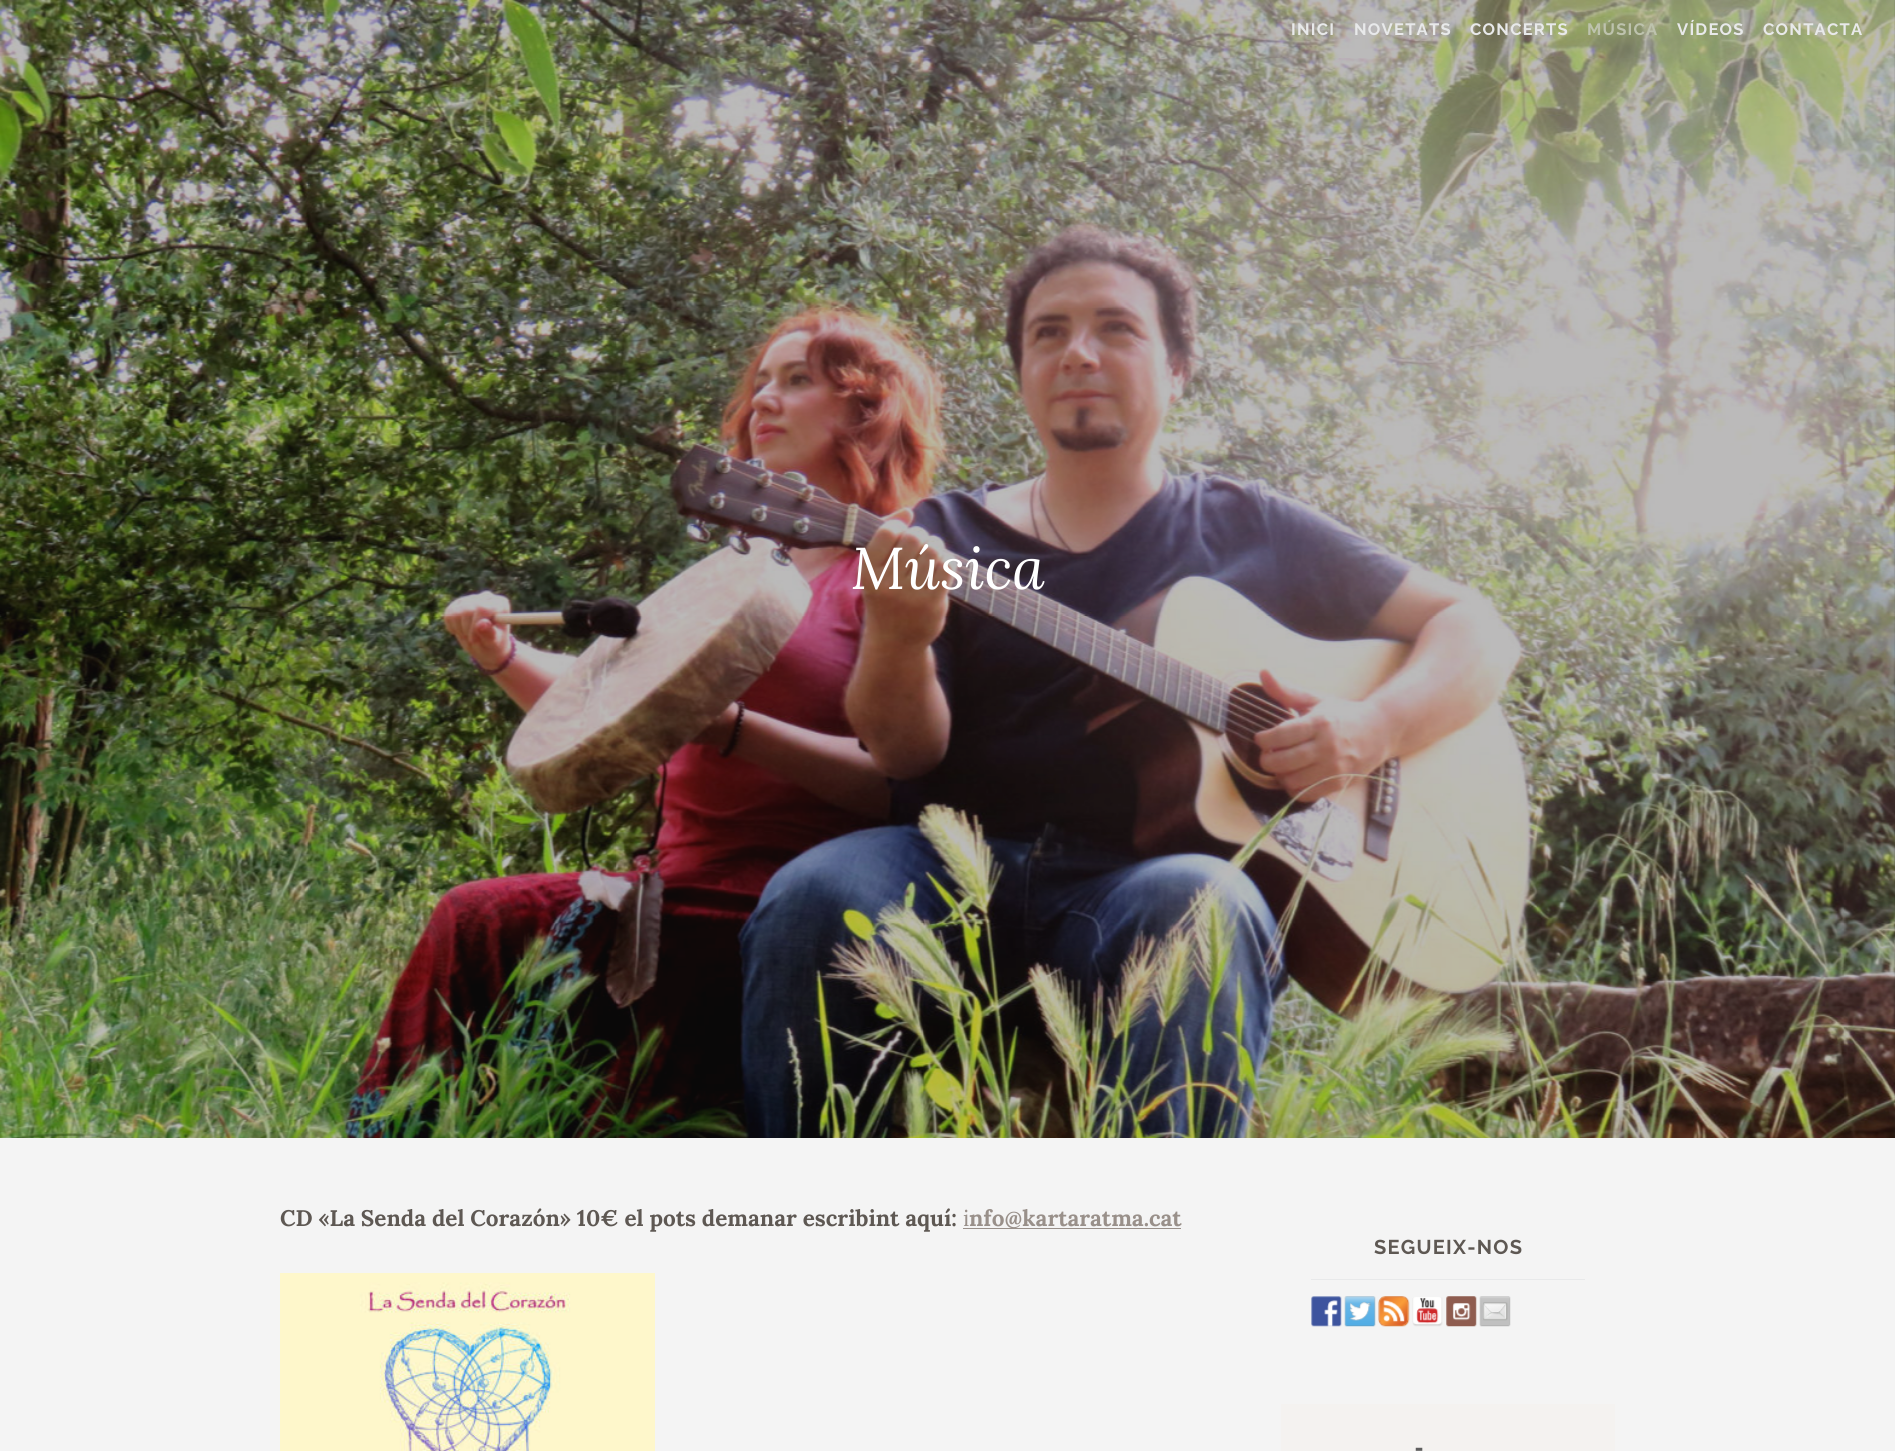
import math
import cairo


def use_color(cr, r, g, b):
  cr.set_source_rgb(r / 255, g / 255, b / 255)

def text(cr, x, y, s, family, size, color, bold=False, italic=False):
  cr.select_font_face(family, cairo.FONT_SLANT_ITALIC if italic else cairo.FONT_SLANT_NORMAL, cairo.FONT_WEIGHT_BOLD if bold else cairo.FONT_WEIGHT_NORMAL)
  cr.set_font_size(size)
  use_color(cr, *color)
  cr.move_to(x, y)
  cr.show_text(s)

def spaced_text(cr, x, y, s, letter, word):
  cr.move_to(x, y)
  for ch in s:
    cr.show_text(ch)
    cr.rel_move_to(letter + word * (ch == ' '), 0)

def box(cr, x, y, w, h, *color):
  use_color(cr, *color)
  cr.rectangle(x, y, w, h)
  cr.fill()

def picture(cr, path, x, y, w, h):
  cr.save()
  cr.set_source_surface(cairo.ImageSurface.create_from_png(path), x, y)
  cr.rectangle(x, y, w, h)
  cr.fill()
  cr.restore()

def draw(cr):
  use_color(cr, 244, 244, 244)
  cr.paint()
  box(cr, 0, 0, 1895, 1138, 30, 28, 27)
  picture(cr, "img_01.png", 0, 0, 1895, 1138)
  box(cr, 963, 1228, 218, 1, 153, 144, 138)
  picture(cr, "img_02.png", 280, 1273, 375, 178)
  box(cr, 1311, 1279, 274, 1, 232, 233, 234)
  picture(cr, "img_03.png", 1311, 1296, 31, 31)
  picture(cr, "img_04.png", 1344, 1296, 32, 31)
  picture(cr, "img_05.png", 1378, 1296, 32, 31)
  picture(cr, "img_06.png", 1412, 1297, 31, 30)
  picture(cr, "img_07.png", 1446, 1296, 31, 31)
  picture(cr, "img_08.png", 1479, 1296, 32, 31)
  box(cr, 1281, 1404, 334, 47, 244, 242, 240)
  cr.select_font_face("Raleway", cairo.FONT_SLANT_NORMAL, cairo.FONT_WEIGHT_BOLD)
  cr.set_font_size(16.5)
  use_color(cr, 232, 233, 234)
  spaced_text(cr, 1291, 35, "INICI", 1.25, 0)
  spaced_text(cr, 1354, 35, "NOVETATS", 1.25, 0)
  spaced_text(cr, 1470, 35, "CONCERTS", 1.25, 0)
  use_color(cr, 189, 194, 173)
  spaced_text(cr, 1587, 35, "MÚSICA", 1.25, 0)
  use_color(cr, 232, 233, 234)
  spaced_text(cr, 1677, 35, "VÍDEOS", 1.25, 0)
  spaced_text(cr, 1763, 35, "CONTACTA", 1.25, 0)
  text(cr, 851, 589, "Música", "Lora", 59, (255, 255, 255), italic=True)
  text(cr, 280, 1226, "CD «La Senda del Corazón» 10€ el pots demanar escribint aquí:", "Lora", 22.5, (94, 88, 83), bold=True)
  text(cr, 963, 1226, "i", "Lora", 22.5, (153, 144, 138))
  text(cr, 969, 1226, "nfo@kartaratma.cat", "Lora", 22.5, (153, 144, 138), bold=True)
  cr.select_font_face("Raleway", cairo.FONT_SLANT_NORMAL, cairo.FONT_WEIGHT_BOLD)
  cr.set_font_size(20)
  use_color(cr, 94, 88, 83)
  spaced_text(cr, 1374, 1254, "SEGUEIX-NOS", 1.25, 0)
  text(cr, 1415, 1456, "-", "Open Sans", 25, (94, 94, 94), bold=True)


surface = cairo.ImageSurface(cairo.FORMAT_RGB24, 1895, 1451)
cr = cairo.Context(surface)
options = cairo.FontOptions()
options.set_hint_metrics(cairo.HINT_METRICS_OFF)
options.set_hint_style(cairo.HINT_STYLE_NONE)
cr.set_font_options(options)
cr.set_miter_limit(4)
draw(cr)
surface.write_to_png("out.png")
